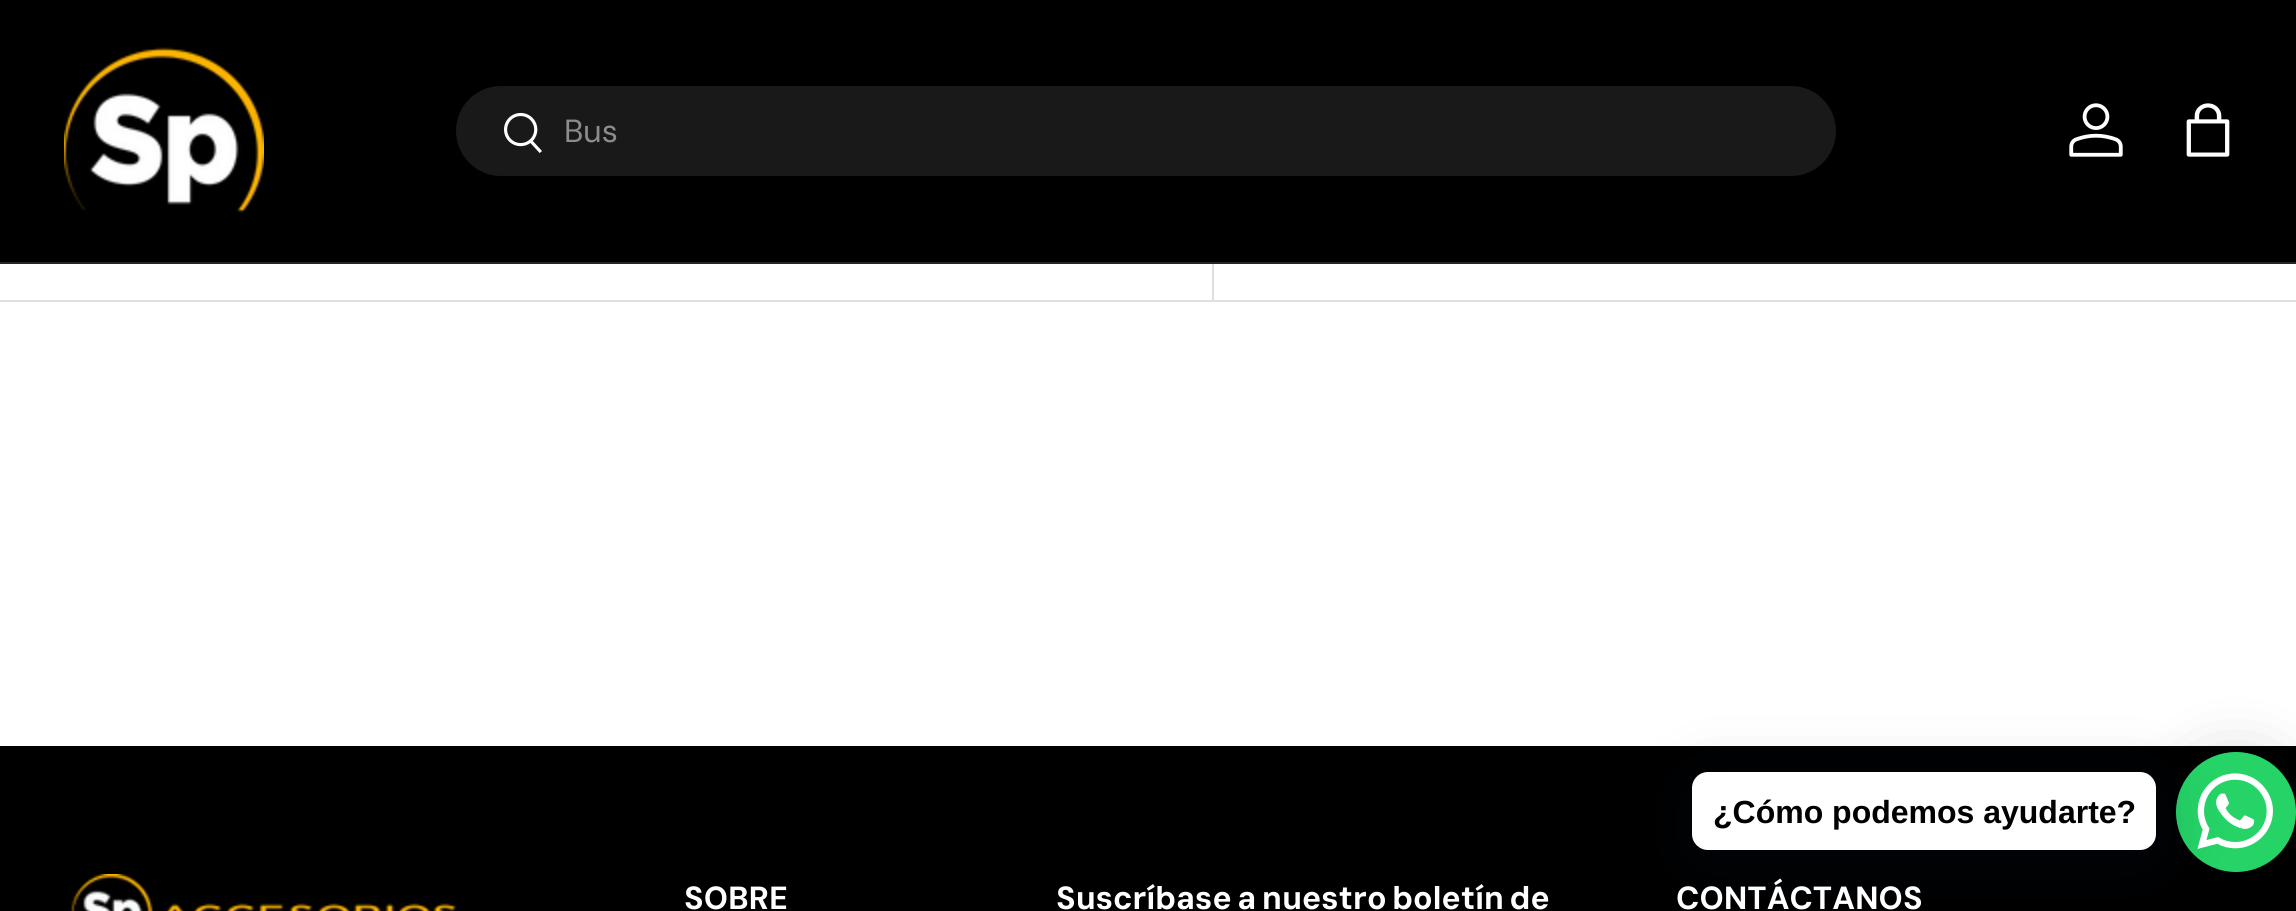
import math
import cairo


def use_color(cr, r, g, b):
  cr.set_source_rgb(r / 255, g / 255, b / 255)

def text(cr, x, y, s, family, size, color, bold=False, italic=False):
  cr.select_font_face(family, cairo.FONT_SLANT_ITALIC if italic else cairo.FONT_SLANT_NORMAL, cairo.FONT_WEIGHT_BOLD if bold else cairo.FONT_WEIGHT_NORMAL)
  cr.set_font_size(size)
  use_color(cr, *color)
  cr.move_to(x, y)
  cr.show_text(s)

def spaced_text(cr, x, y, s, letter, word):
  cr.move_to(x, y)
  for ch in s:
    cr.show_text(ch)
    cr.rel_move_to(letter + word * (ch == ' '), 0)

def box(cr, x, y, w, h, *color):
  use_color(cr, *color)
  cr.rectangle(x, y, w, h)
  cr.fill()

def round_rect(cr, x, y, w, h, r):
  cr.new_sub_path()
  for i, (u, v) in enumerate([(x + w - r, y + h - r), (x + r, y + h - r), (x + r, y + r), (x + w - r, y + r)]):
    cr.arc(u, v, r, i * math.pi / 2, (i + 1) * math.pi / 2)
  cr.close_path()

def shadow(cr, x, y, w, h, r, blur, alpha):
  cr.push_group_with_content(cairo.CONTENT_ALPHA)
  cr.set_operator(cairo.OPERATOR_SOURCE)
  for i in range(15, -16, -2):
    e = blur * i / 6
    if min(w, h) + 2 * e > 0:
      cr.set_source_rgba(0, 0, 0, alpha * math.erfc((i - 1) / 8.5) / 2)
      round_rect(cr, x - e, y - e, w + 2 * e, h + 2 * e, max(0, min(r + e + blur * .6, min(w, h) / 2 + e)))
      cr.fill()
  cr.mask(cr.pop_group())

def picture(cr, path, x, y, w, h):
  cr.save()
  cr.set_source_surface(cairo.ImageSurface.create_from_png(path), x, y)
  cr.rectangle(x, y, w, h)
  cr.fill()
  cr.restore()

def draw(cr):
  use_color(cr, 255, 255, 255)
  cr.paint()
  box(cr, 0, 0, 2296, 262, 0, 0, 0)
  box(cr, 0, 262, 2296, 2, 38, 38, 38)
  picture(cr, "img_01.png", 64, 47, 200, 166)
  use_color(cr, 25, 25, 25)
  round_rect(cr, 456, 86, 1380, 90, 45)
  cr.fill()
  picture(cr, "img_02.png", 504, 112, 38, 41)
  picture(cr, "img_03.png", 2069, 103, 54, 54)
  picture(cr, "img_04.png", 2186, 103, 44, 54)
  box(cr, 0, 300, 2296, 2, 223, 223, 223)
  box(cr, 1212, 264, 2, 38, 223, 223, 223)
  box(cr, 0, 746, 2296, 165, 0, 0, 0)
  use_color(cr, 0, 0, 0)
  shadow(cr, 2176, 756, 120, 120, 60, 32, 0.16)
  use_color(cr, 37, 211, 102)
  cr.arc(2236, 812, 60, 0, 2 * math.pi)
  cr.fill()
  use_color(cr, 0, 18, 46)
  shadow(cr, 1692, 784, 464, 78, 16, 32, 0.24)
  use_color(cr, 255, 255, 255)
  round_rect(cr, 1692, 772, 464, 78, 16)
  cr.fill()
  picture(cr, "img_05.png", 2197, 773, 76, 76)
  picture(cr, "img_06.png", 70, 874, 387, 37)
  text(cr, 564, 142, "Bus", "DM Sans", 32, (140, 140, 140))
  text(cr, 1713, 823, "¿Cómo podemos ayudarte?", "Liberation Sans", 32, (0, 0, 0), bold=True)
  text(cr, 684, 909, "SOBRE", "DM Sans", 32, (255, 255, 255), bold=True)
  spaced_text(cr, 1056, 909, "Suscríbase a nuestro boletín de", 0, -2)
  text(cr, 1676, 909, "CONTÁCTANOS", "DM Sans", 32, (255, 255, 255), bold=True)


surface = cairo.ImageSurface(cairo.FORMAT_RGB24, 2296, 911)
cr = cairo.Context(surface)
options = cairo.FontOptions()
options.set_hint_metrics(cairo.HINT_METRICS_OFF)
options.set_hint_style(cairo.HINT_STYLE_NONE)
cr.set_font_options(options)
cr.set_miter_limit(4)
draw(cr)
surface.write_to_png("out.png")
